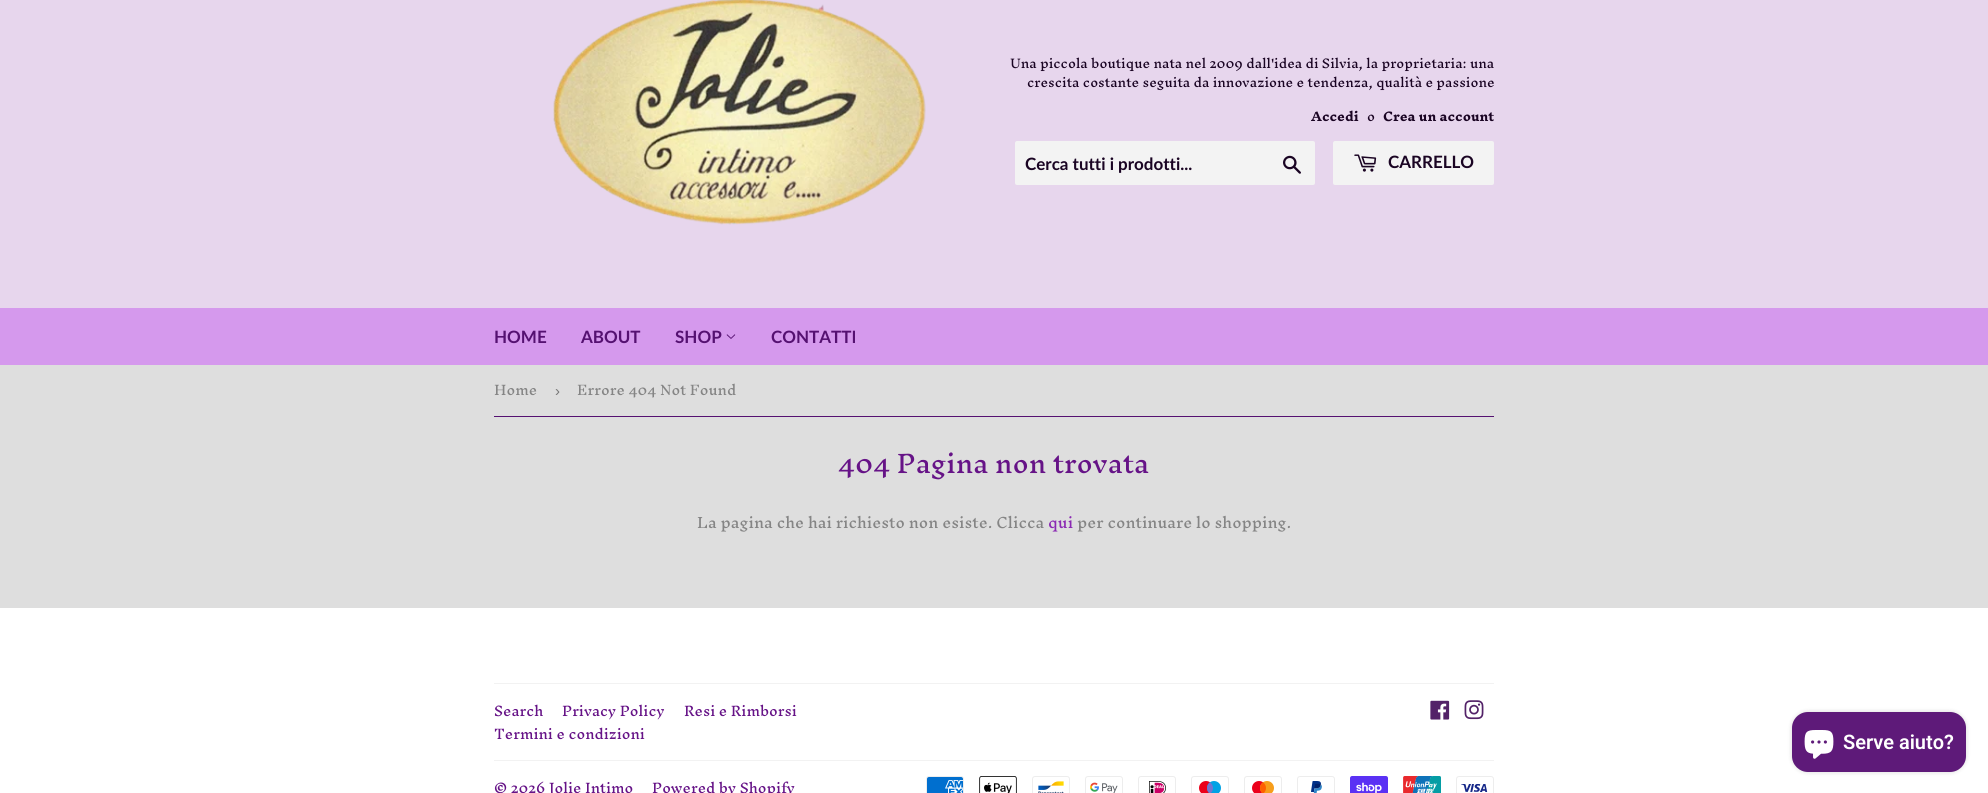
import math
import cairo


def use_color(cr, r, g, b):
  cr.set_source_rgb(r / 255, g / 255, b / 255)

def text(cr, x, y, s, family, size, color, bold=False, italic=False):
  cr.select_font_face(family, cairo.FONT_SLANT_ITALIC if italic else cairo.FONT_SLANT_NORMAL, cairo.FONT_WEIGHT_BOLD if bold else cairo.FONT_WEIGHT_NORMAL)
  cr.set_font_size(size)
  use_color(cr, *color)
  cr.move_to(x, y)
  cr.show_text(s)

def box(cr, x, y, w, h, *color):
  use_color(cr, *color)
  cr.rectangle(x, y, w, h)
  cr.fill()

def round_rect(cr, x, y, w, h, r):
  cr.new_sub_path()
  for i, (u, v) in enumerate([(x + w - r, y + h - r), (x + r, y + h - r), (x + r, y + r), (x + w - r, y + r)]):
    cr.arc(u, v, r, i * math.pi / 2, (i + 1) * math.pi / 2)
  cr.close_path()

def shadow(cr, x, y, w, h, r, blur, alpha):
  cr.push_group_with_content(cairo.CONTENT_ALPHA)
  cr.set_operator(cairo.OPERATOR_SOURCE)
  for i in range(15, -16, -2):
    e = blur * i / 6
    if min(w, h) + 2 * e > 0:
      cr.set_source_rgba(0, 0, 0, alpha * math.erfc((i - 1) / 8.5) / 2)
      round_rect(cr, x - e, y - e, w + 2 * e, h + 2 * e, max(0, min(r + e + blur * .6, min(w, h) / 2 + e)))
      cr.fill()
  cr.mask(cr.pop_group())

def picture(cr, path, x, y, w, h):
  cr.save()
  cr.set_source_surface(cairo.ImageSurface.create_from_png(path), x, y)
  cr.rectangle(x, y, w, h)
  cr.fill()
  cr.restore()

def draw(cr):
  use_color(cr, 222, 222, 222)
  cr.paint()
  box(cr, 0, 0, 1988, 308, 231, 214, 237)
  picture(cr, "img_01.png", 553, 0, 373, 225)
  use_color(cr, 243, 243, 243)
  round_rect(cr, 1015, 141, 300, 44, 2)
  cr.fill()
  picture(cr, "img_02.png", 1283, 155, 18, 19)
  round_rect(cr, 1333, 141, 161, 44, 2)
  cr.fill()
  picture(cr, "img_03.png", 1354, 154, 23, 18)
  box(cr, 0, 308, 1988, 57, 213, 153, 237)
  picture(cr, "img_04.png", 726, 334, 10, 5)
  box(cr, 494, 416, 1000, 1, 85, 17, 113)
  box(cr, 0, 608, 1988, 185, 255, 255, 255)
  box(cr, 494, 683, 1000, 1, 242, 242, 242)
  picture(cr, "img_05.png", 1430, 700, 20, 20)
  picture(cr, "img_06.png", 1464, 700, 20, 20)
  box(cr, 494, 760, 1000, 1, 242, 242, 242)
  picture(cr, "img_07.png", 926, 776, 38, 17)
  picture(cr, "img_08.png", 979, 776, 38, 17)
  picture(cr, "img_09.png", 1032, 776, 38, 17)
  picture(cr, "img_10.png", 1085, 776, 38, 17)
  picture(cr, "img_11.png", 1138, 776, 38, 17)
  picture(cr, "img_12.png", 1191, 776, 38, 17)
  picture(cr, "img_13.png", 1244, 776, 38, 17)
  picture(cr, "img_14.png", 1297, 776, 38, 17)
  picture(cr, "img_15.png", 1350, 776, 38, 17)
  picture(cr, "img_16.png", 1403, 776, 38, 17)
  picture(cr, "img_17.png", 1456, 776, 38, 17)
  use_color(cr, 0, 0, 0)
  shadow(cr, 1792, 712, 174, 60, 16, 2.5, 0.15)
  use_color(cr, 94, 26, 121)
  round_rect(cr, 1792, 712, 174, 60, 16)
  cr.fill()
  picture(cr, "img_18.png", 1804, 730, 30, 29)
  text(cr, 1010, 68, "Una piccola boutique nata nel 2009 dall'idea di Silvia, la proprietaria: una", "Inknut Antiqua", 11.9, (26, 4, 35))
  text(cr, 1027, 87, "crescita costante seguita da innovazione e tendenza, qualità e passione", "Inknut Antiqua", 11.9, (26, 4, 35))
  text(cr, 1311, 121, "Accedi", "Inknut Antiqua", 11.9, (26, 4, 35), bold=True)
  text(cr, 1367, 121, "o", "Inknut Antiqua", 11.9, (26, 4, 35))
  text(cr, 1383, 121, "Crea un account", "Inknut Antiqua", 11.9, (26, 4, 35), bold=True)
  text(cr, 1025, 170, "Cerca tutti i prodotti...", "Lato", 17, (26, 4, 35), bold=True)
  text(cr, 1388, 168, "CARRELLO", "Lato", 17, (26, 4, 35), bold=True)
  text(cr, 494, 343, "HOME", "Lato", 17, (85, 17, 113), bold=True)
  text(cr, 581, 343, "ABOUT", "Lato", 17, (85, 17, 113), bold=True)
  text(cr, 675, 343, "SHOP", "Lato", 17, (85, 17, 113), bold=True)
  text(cr, 771, 343, "CONTATTI", "Lato", 17, (85, 17, 113), bold=True)
  text(cr, 494, 395, "Home", "Inknut Antiqua", 13, (133, 133, 133))
  text(cr, 555, 396, "›", "Liberation Sans", 15, (118, 118, 118))
  text(cr, 577, 395, "Errore 404 Not Found", "Inknut Antiqua", 13, (133, 133, 133))
  text(cr, 838, 473, "404 Pagina non trovata", "Inknut Antiqua", 24.25, (102, 19, 135))
  text(cr, 697, 528, "La pagina che hai richiesto non esiste. Clicca", "Inknut Antiqua", 14, (133, 133, 133))
  text(cr, 1048, 528, "qui", "Inknut Antiqua", 14, (139, 41, 179))
  text(cr, 1077, 528, "per continuare lo shopping.", "Inknut Antiqua", 14, (133, 133, 133))
  text(cr, 494, 716, "Search", "Inknut Antiqua", 13, (102, 19, 135))
  text(cr, 562, 716, "Privacy Policy", "Inknut Antiqua", 13, (102, 19, 135))
  text(cr, 684, 716, "Resi e Rimborsi", "Inknut Antiqua", 13, (102, 19, 135))
  text(cr, 494, 739, "Termini e condizioni", "Inknut Antiqua", 13, (102, 19, 135))
  text(cr, 494, 793, "© 2026 Jolie Intimo", "Inknut Antiqua", 13, (102, 19, 135))
  text(cr, 652, 793, "Powered by Shopify", "Inknut Antiqua", 13, (102, 19, 135))
  text(cr, 1843, 749, "Serve aiuto?", "Roboto SemiBold", 20, (255, 255, 255))


surface = cairo.ImageSurface(cairo.FORMAT_RGB24, 1988, 793)
cr = cairo.Context(surface)
options = cairo.FontOptions()
options.set_hint_metrics(cairo.HINT_METRICS_OFF)
options.set_hint_style(cairo.HINT_STYLE_NONE)
cr.set_font_options(options)
cr.set_miter_limit(4)
draw(cr)
surface.write_to_png("out.png")
